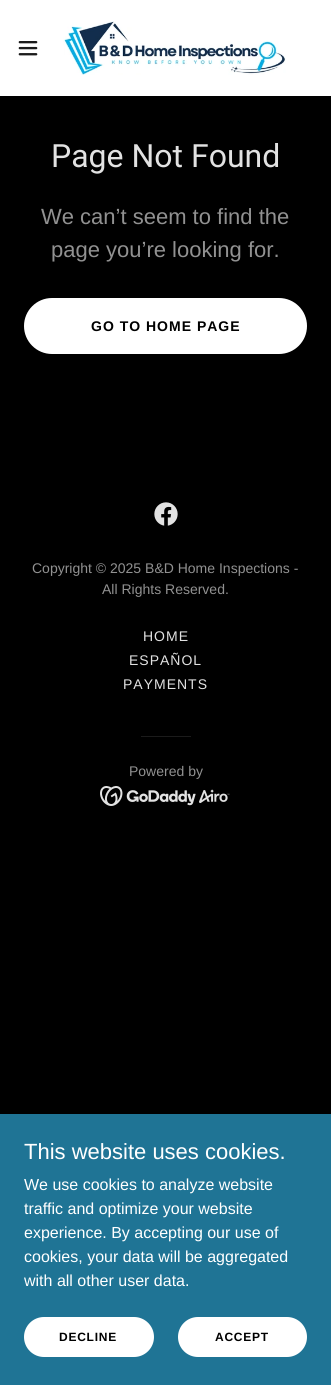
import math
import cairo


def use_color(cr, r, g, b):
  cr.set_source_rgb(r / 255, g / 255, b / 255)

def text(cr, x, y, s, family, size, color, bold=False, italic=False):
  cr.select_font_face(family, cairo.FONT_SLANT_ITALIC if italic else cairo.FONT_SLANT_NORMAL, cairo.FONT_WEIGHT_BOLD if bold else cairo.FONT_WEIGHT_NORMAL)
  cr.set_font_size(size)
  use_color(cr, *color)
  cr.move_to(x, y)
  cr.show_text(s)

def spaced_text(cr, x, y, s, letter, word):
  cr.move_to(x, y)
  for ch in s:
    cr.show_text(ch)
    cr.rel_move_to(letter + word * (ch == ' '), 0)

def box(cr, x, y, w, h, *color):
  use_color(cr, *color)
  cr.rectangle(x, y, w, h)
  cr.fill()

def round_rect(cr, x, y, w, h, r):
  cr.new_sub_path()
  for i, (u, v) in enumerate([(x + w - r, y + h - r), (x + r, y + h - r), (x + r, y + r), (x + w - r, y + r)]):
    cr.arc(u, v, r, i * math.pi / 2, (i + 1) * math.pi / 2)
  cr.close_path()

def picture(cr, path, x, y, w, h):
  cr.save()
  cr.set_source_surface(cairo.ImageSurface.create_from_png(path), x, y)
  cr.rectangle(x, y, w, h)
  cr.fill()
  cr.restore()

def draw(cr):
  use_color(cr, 0, 0, 0)
  cr.paint()
  box(cr, 0, 0, 331, 96, 255, 255, 255)
  picture(cr, "img_01.png", 18, 41, 20, 15)
  picture(cr, "img_02.png", 63, 21, 223, 54)
  round_rect(cr, 24, 298, 283, 56, 28)
  cr.fill()
  picture(cr, "img_03.png", 154, 502, 24, 24)
  box(cr, 141, 736, 50, 1, 27, 27, 27)
  picture(cr, "img_04.png", 100, 786, 130, 20)
  box(cr, 0, 1114, 331, 271, 31, 116, 149)
  use_color(cr, 255, 255, 255)
  round_rect(cr, 24, 1317, 130, 40, 20)
  cr.fill()
  round_rect(cr, 178, 1317, 129, 40, 20)
  cr.fill()
  text(cr, 51, 167, "Page Not Found", "Roboto", 32, (226, 226, 226))
  text(cr, 41, 224, "We can’t seem to find the", "Liberation Sans", 22, (145, 145, 145))
  text(cr, 51, 257, "page you’re looking for.", "Liberation Sans", 22, (145, 145, 145))
  cr.select_font_face("Liberation Sans", cairo.FONT_SLANT_NORMAL, cairo.FONT_WEIGHT_BOLD)
  cr.set_font_size(14)
  use_color(cr, 0, 0, 0)
  spaced_text(cr, 91, 331, "GO TO HOME PAGE", 1, 0)
  text(cr, 32, 573, "Copyright © 2025 B&D Home Inspections -", "Liberation Sans", 14, (145, 145, 145))
  text(cr, 102, 594, "All Rights Reserved.", "Liberation Sans", 14, (145, 145, 145))
  use_color(cr, 226, 226, 226)
  spaced_text(cr, 143, 641, "HOME", 1, 0)
  spaced_text(cr, 129, 665, "ESPAÑOL", 1, 0)
  spaced_text(cr, 123, 689, "PAYMENTS", 1, 0)
  text(cr, 129, 776, "Powered by", "Liberation Sans", 14, (145, 145, 145))
  text(cr, 24, 1159, "This website uses cookies.", "Liberation Sans", 22, (255, 255, 255))
  text(cr, 24, 1190, "We use cookies to analyze website", "Liberation Sans", 16, (255, 255, 255))
  text(cr, 24, 1214, "traffic and optimize your website", "Liberation Sans", 16, (255, 255, 255))
  text(cr, 24, 1238, "experience. By accepting our use of", "Liberation Sans", 16, (255, 255, 255))
  text(cr, 24, 1262, "cookies, your data will be aggregated", "Liberation Sans", 16, (255, 255, 255))
  text(cr, 24, 1286, "with all other user data.", "Liberation Sans", 16, (255, 255, 255))
  cr.select_font_face("Liberation Sans", cairo.FONT_SLANT_NORMAL, cairo.FONT_WEIGHT_BOLD)
  cr.set_font_size(12)
  use_color(cr, 0, 0, 0)
  spaced_text(cr, 59, 1341, "DECLINE", 0.75, 0)
  spaced_text(cr, 215, 1341, "ACCEPT", 0.75, 0)


surface = cairo.ImageSurface(cairo.FORMAT_RGB24, 331, 1385)
cr = cairo.Context(surface)
options = cairo.FontOptions()
options.set_hint_metrics(cairo.HINT_METRICS_OFF)
options.set_hint_style(cairo.HINT_STYLE_NONE)
cr.set_font_options(options)
cr.set_miter_limit(4)
draw(cr)
surface.write_to_png("out.png")
